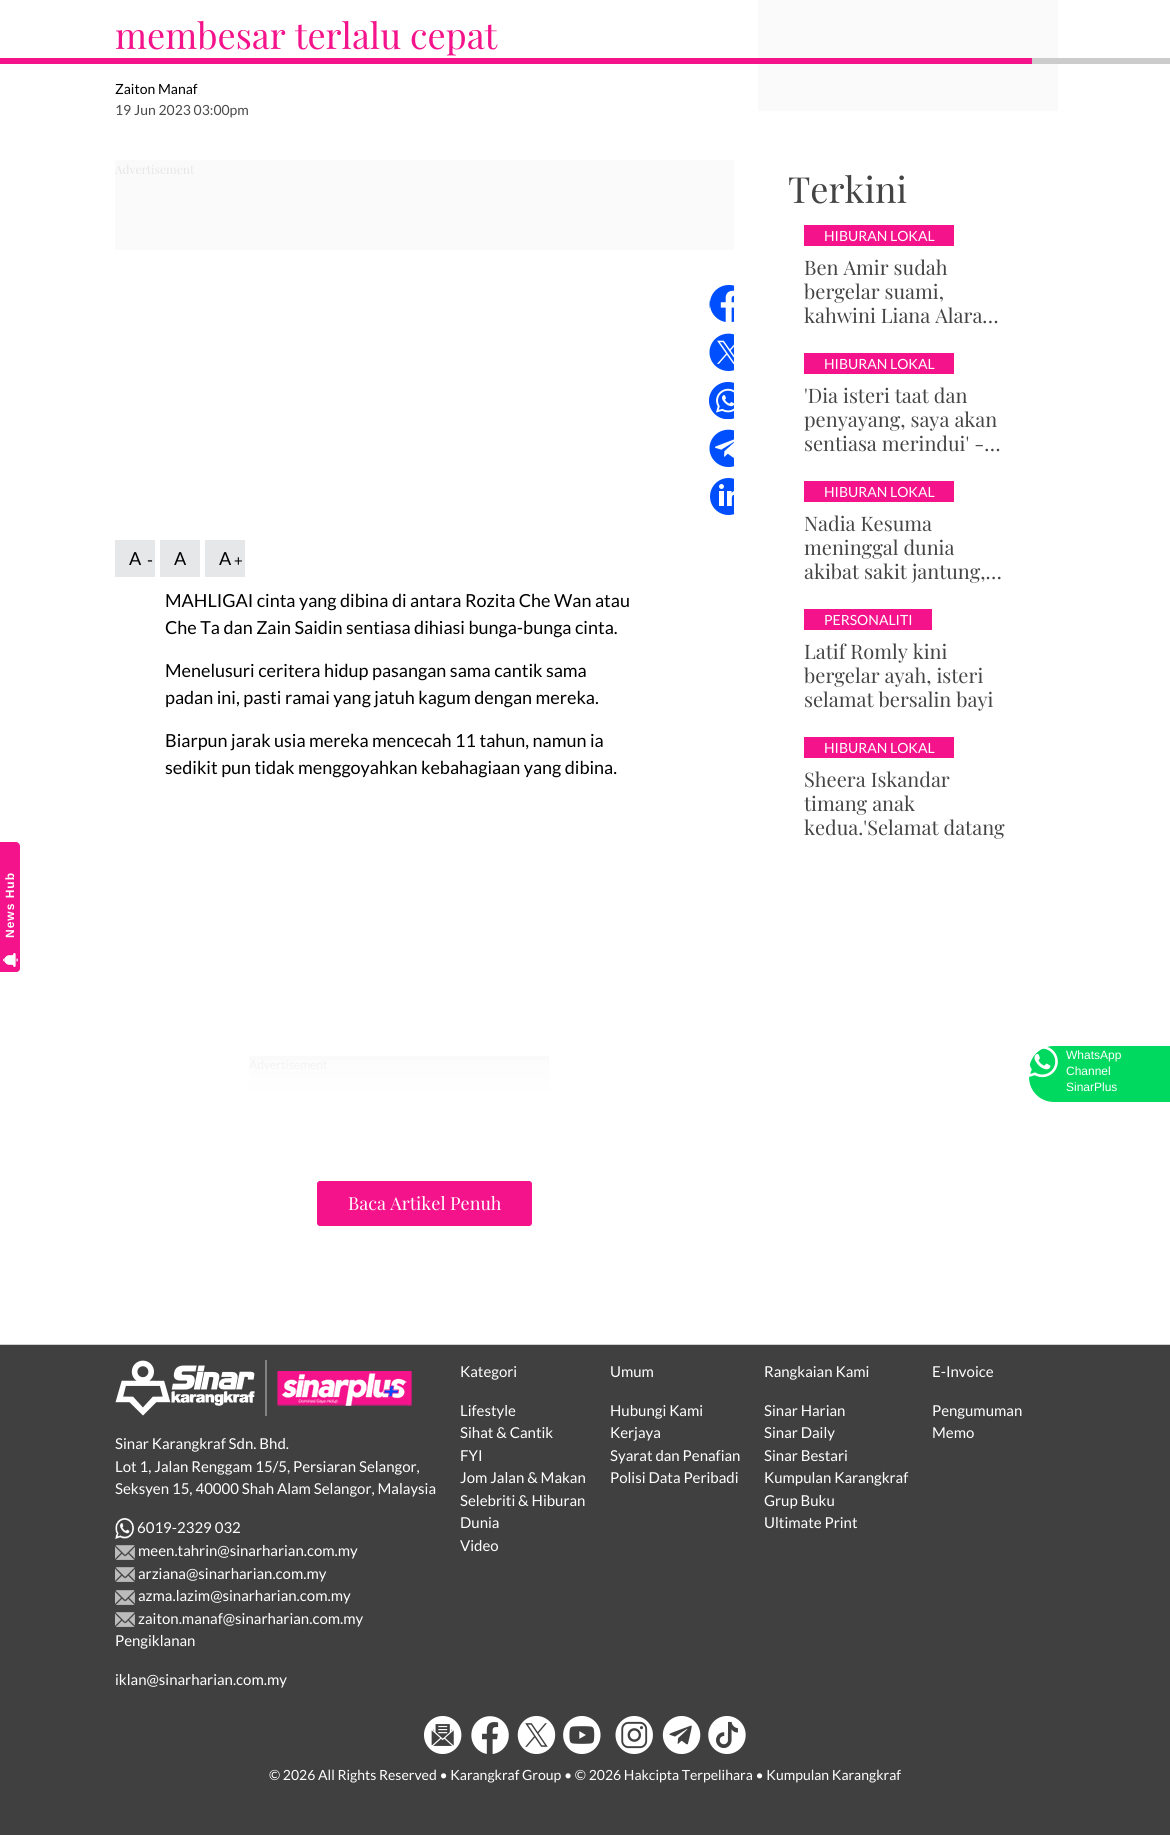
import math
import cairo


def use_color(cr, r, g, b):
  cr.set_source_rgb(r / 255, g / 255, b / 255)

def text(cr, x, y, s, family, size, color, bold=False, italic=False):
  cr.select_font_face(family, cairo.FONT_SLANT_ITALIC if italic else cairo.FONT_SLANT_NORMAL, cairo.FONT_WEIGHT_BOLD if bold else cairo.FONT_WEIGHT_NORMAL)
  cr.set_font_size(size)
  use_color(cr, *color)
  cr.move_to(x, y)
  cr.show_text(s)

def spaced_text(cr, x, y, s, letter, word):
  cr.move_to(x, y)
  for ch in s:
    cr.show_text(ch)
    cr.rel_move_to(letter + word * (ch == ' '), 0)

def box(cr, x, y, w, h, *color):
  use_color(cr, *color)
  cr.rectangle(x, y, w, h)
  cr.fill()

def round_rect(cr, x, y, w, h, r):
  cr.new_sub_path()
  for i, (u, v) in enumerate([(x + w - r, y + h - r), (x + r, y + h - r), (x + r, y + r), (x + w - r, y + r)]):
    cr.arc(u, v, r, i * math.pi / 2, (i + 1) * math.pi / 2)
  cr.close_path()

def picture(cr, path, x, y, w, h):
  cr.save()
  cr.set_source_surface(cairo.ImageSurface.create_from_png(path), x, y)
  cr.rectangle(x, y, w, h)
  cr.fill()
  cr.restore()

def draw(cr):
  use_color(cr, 255, 255, 255)
  cr.paint()
  box(cr, 249, 1056, 300, 91, 250, 250, 250)
  box(cr, 115, 160, 619, 90, 250, 250, 250)
  picture(cr, "img_01.png", 709, 285, 25, 38)
  picture(cr, "img_02.png", 709, 333, 25, 38)
  picture(cr, "img_03.png", 709, 382, 25, 37)
  picture(cr, "img_04.png", 709, 429, 25, 38)
  picture(cr, "img_05.png", 710, 478, 24, 37)
  box(cr, 115, 540, 40, 37, 230, 231, 232)
  box(cr, 160, 540, 40, 37, 230, 231, 232)
  box(cr, 205, 540, 40, 37, 230, 231, 232)
  use_color(cr, 244, 19, 139)
  round_rect(cr, 317.5, 1181.5, 214, 44, 2.5)
  cr.fill_preserve()
  cr.set_line_width(1)
  cr.stroke()
  box(cr, 758, 0, 300, 111, 250, 250, 250)
  box(cr, 804, 225, 150, 21, 244, 19, 139)
  box(cr, 804, 353, 150, 21, 244, 19, 139)
  box(cr, 804, 481, 150, 21, 244, 19, 139)
  box(cr, 804, 609, 128, 21, 244, 19, 139)
  box(cr, 804, 737, 150, 21, 244, 19, 139)
  box(cr, 1032, 58, 138, 6, 204, 204, 204)
  box(cr, 0, 58, 1032, 6, 244, 19, 139)
  cr.new_path()
  cr.move_to(0, 972)
  cr.line_to(0, 842)
  cr.line_to(16, 842)
  cr.curve_to(18, 842, 20, 844, 20, 846)
  cr.line_to(20, 968)
  cr.curve_to(20, 971, 18, 972, 16, 972)
  cr.close_path()
  cr.fill()
  picture(cr, "img_06.png", 3, 953, 15, 14)
  box(cr, 0, 1345, 1170, 490, 64, 64, 64)
  box(cr, 0, 1344, 1170, 1, 208, 208, 208)
  use_color(cr, 0, 217, 95)
  cr.new_path()
  cr.move_to(1054, 1046)
  cr.line_to(1170, 1046)
  cr.line_to(1170, 1102)
  cr.line_to(1054, 1102)
  cr.curve_to(1040, 1102, 1029, 1091, 1029, 1077)
  cr.line_to(1029, 1071)
  cr.curve_to(1029, 1057, 1040, 1046, 1054, 1046)
  cr.close_path()
  cr.fill()
  picture(cr, "img_07.png", 1029, 1047, 29, 31)
  box(cr, 265, 1360, 2, 56, 131, 131, 131)
  picture(cr, "img_08.png", 115, 1360, 140, 56)
  picture(cr, "img_09.png", 277, 1371, 135, 35)
  picture(cr, "img_10.png", 115, 1518, 19, 21)
  picture(cr, "img_11.png", 115, 1545, 20, 15)
  picture(cr, "img_11.png", 115, 1567, 20, 15)
  picture(cr, "img_11.png", 115, 1590, 20, 15)
  picture(cr, "img_11.png", 115, 1612, 20, 15)
  picture(cr, "img_12.png", 424, 1716, 38, 38)
  picture(cr, "img_13.png", 471, 1716, 38, 38)
  picture(cr, "img_14.png", 517, 1716, 39, 38)
  picture(cr, "img_15.png", 563, 1716, 38, 38)
  picture(cr, "img_16.png", 615, 1716, 38, 38)
  picture(cr, "img_17.png", 662, 1716, 39, 38)
  picture(cr, "img_18.png", 708, 1716, 38, 38)
  text(cr, 115, 49, "membesar terlalu cepat", "Playfair Display", 36, (244, 19, 139))
  text(cr, 115, 94, "Zaiton Manaf", "Lato", 14, (0, 0, 0))
  text(cr, 115, 115, "19 Jun 2023 03:00pm", "Lato", 14, (74, 74, 74))
  text(cr, 115, 174, "Advertisement", "Playfair Display", 12, (230, 230, 230))
  text(cr, 129, 565, "A", "Lato", 18, (0, 0, 0))
  text(cr, 147, 566, "-", "Lato", 17, (0, 0, 0))
  text(cr, 174, 565, "A", "Lato", 18, (0, 0, 0))
  text(cr, 219, 565, "A", "Lato", 18, (0, 0, 0))
  text(cr, 234, 566, "+", "Lato", 15, (0, 0, 0))
  text(cr, 165, 607, "MAHLIGAI cinta yang dibina di antara Rozita Che Wan atau", "Lato", 18, (0, 0, 0))
  text(cr, 165, 634, "Che Ta dan Zain Saidin sentiasa dihiasi bunga-bunga cinta.", "Lato", 18, (0, 0, 0))
  text(cr, 165, 677, "Menelusuri ceritera hidup pasangan sama cantik sama", "Lato", 18, (0, 0, 0))
  text(cr, 165, 704, "padan ini, pasti ramai yang jatuh kagum dengan mereka.", "Lato", 18, (0, 0, 0))
  text(cr, 165, 747, "Biarpun jarak usia mereka mencecah 11 tahun, namun ia", "Lato", 18, (0, 0, 0))
  text(cr, 165, 774, "sedikit pun tidak menggoyahkan kebahagiaan yang dibina.", "Lato", 18, (0, 0, 0))
  text(cr, 249, 1069, "Advertisement", "Lato", 12, (230, 230, 230))
  gradient = cairo.LinearGradient(425, 1031, 425, 1151)
  gradient.add_color_stop_rgba(0, 1, 1, 1, 0)
  gradient.add_color_stop_rgba(0.5, 1, 1, 1, 0.9)
  gradient.add_color_stop_rgba(1, 1, 1, 1, 1)
  cr.set_source(gradient)
  cr.rectangle(249, 1060, 300, 87)
  cr.fill()
  text(cr, 348, 1210, "Baca Artikel Penuh", "Playfair Display", 18, (255, 255, 255))
  text(cr, 788, 203, "Terkini", "Playfair Display", 36, (68, 68, 68))
  text(cr, 824, 241, "HIBURAN LOKAL", "Lato", 14, (255, 255, 255))
  text(cr, 804, 275, "Ben Amir sudah", "Playfair Display", 20, (68, 68, 68))
  text(cr, 804, 299, "bergelar suami,", "Playfair Display", 20, (68, 68, 68))
  text(cr, 804, 323, "kahwini Liana Alara…", "Playfair Display", 20, (68, 68, 68))
  text(cr, 824, 369, "HIBURAN LOKAL", "Lato", 14, (255, 255, 255))
  text(cr, 804, 403, "'Dia isteri taat dan", "Playfair Display", 20, (68, 68, 68))
  text(cr, 804, 427, "penyayang, saya akan", "Playfair Display", 20, (68, 68, 68))
  text(cr, 804, 451, "sentiasa merindui' -…", "Playfair Display", 20, (68, 68, 68))
  text(cr, 824, 497, "HIBURAN LOKAL", "Lato", 14, (255, 255, 255))
  text(cr, 804, 531, "Nadia Kesuma", "Playfair Display", 20, (68, 68, 68))
  text(cr, 804, 555, "meninggal dunia", "Playfair Display", 20, (68, 68, 68))
  text(cr, 804, 579, "akibat sakit jantung,…", "Playfair Display", 20, (68, 68, 68))
  text(cr, 824, 625, "PERSONALITI", "Lato", 14, (255, 255, 255))
  text(cr, 804, 659, "Latif Romly kini", "Playfair Display", 20, (68, 68, 68))
  text(cr, 804, 683, "bergelar ayah, isteri", "Playfair Display", 20, (68, 68, 68))
  text(cr, 804, 707, "selamat bersalin bayi", "Playfair Display", 20, (68, 68, 68))
  text(cr, 824, 753, "HIBURAN LOKAL", "Lato", 14, (255, 255, 255))
  text(cr, 804, 787, "Sheera Iskandar", "Playfair Display", 20, (68, 68, 68))
  text(cr, 804, 811, "timang anak", "Playfair Display", 20, (68, 68, 68))
  text(cr, 804, 835, "kedua.'Selamat datang", "Playfair Display", 20, (68, 68, 68))
  cr.save()
  cr.new_path()
  cr.move_to(1, 937.5)
  cr.line_to(1, 847.5)
  cr.line_to(19, 847.5)
  cr.line_to(19, 937.5)
  cr.close_path()
  cr.clip()
  cr.select_font_face("Liberation Sans", cairo.FONT_SLANT_NORMAL, cairo.FONT_WEIGHT_BOLD)
  cr.set_font_size(12)
  use_color(cr, 255, 255, 255)
  cr.save()
  cr.translate(14, 938)
  cr.rotate(-90 * math.pi / 180)
  spaced_text(cr, 0, 0, "News Hub", 1, 0)
  cr.restore()
  cr.restore()
  text(cr, 1066, 1059, "WhatsApp", "Liberation Sans", 12, (255, 255, 255))
  text(cr, 1066, 1075, "Channel", "Liberation Sans", 12, (255, 255, 255))
  text(cr, 1066, 1091, "SinarPlus", "Liberation Sans", 12, (255, 255, 255))
  text(cr, 269, 1780, "© 2026 All Rights Reserved • Karangkraf Group • © 2026 Hakcipta Terpelihara • Kumpulan Karangkraf", "Lato", 14, (255, 255, 255))
  text(cr, 460, 1377, "Kategori", "Lato", 15, (255, 255, 255))
  text(cr, 460, 1416, "Lifestyle", "Lato", 15, (255, 255, 255))
  text(cr, 460, 1438, "Sihat & Cantik", "Lato", 15, (255, 255, 255))
  text(cr, 460, 1461, "FYI", "Lato", 15, (255, 255, 255))
  text(cr, 460, 1483, "Jom Jalan & Makan", "Lato", 15, (255, 255, 255))
  text(cr, 460, 1506, "Selebriti & Hiburan", "Lato", 15, (255, 255, 255))
  text(cr, 460, 1528, "Dunia", "Lato", 15, (255, 255, 255))
  text(cr, 460, 1551, "Video", "Lato", 15, (255, 255, 255))
  text(cr, 610, 1377, "Umum", "Lato", 15, (255, 255, 255))
  text(cr, 610, 1416, "Hubungi Kami", "Lato", 15, (255, 255, 255))
  text(cr, 610, 1438, "Kerjaya", "Lato", 15, (255, 255, 255))
  text(cr, 610, 1461, "Syarat dan Penafian", "Lato", 15, (255, 255, 255))
  text(cr, 610, 1483, "Polisi Data Peribadi", "Lato", 15, (255, 255, 255))
  text(cr, 764, 1377, "Rangkaian Kami", "Lato", 15, (255, 255, 255))
  text(cr, 764, 1416, "Sinar Harian", "Lato", 15, (255, 255, 255))
  text(cr, 764, 1438, "Sinar Daily", "Lato", 15, (255, 255, 255))
  text(cr, 764, 1461, "Sinar Bestari", "Lato", 15, (255, 255, 255))
  text(cr, 764, 1483, "Kumpulan Karangkraf", "Lato", 15, (255, 255, 255))
  text(cr, 764, 1506, "Grup Buku", "Lato", 15, (255, 255, 255))
  text(cr, 764, 1528, "Ultimate Print", "Lato", 15, (255, 255, 255))
  text(cr, 932, 1377, "E-Invoice", "Lato", 15, (255, 255, 255))
  text(cr, 932, 1416, "Pengumuman", "Lato", 15, (255, 255, 255))
  text(cr, 932, 1438, "Memo", "Lato", 15, (255, 255, 255))
  text(cr, 115, 1449, "Sinar Karangkraf Sdn. Bhd.", "Lato", 15, (255, 255, 255))
  text(cr, 115, 1472, "Lot 1, Jalan Renggam 15/5, Persiaran Selangor,", "Lato", 15, (255, 255, 255))
  text(cr, 115, 1494, "Seksyen 15, 40000 Shah Alam Selangor, Malaysia", "Lato", 15, (255, 255, 255))
  text(cr, 137, 1533, "6019-2329 032", "Lato", 15, (255, 255, 255))
  text(cr, 138, 1556, "meen.tahrin@sinarharian.com.my", "Lato", 15, (255, 255, 255))
  text(cr, 138, 1579, "arziana@sinarharian.com.my", "Lato", 15, (255, 255, 255))
  text(cr, 138, 1601, "azma.lazim@sinarharian.com.my", "Lato", 15, (255, 255, 255))
  text(cr, 138, 1624, "zaiton.manaf@sinarharian.com.my", "Lato", 15, (255, 255, 255))
  text(cr, 115, 1646, "Pengiklanan", "Lato", 15, (255, 255, 255))
  text(cr, 115, 1685, "iklan@sinarharian.com.my", "Lato", 15, (255, 255, 255))


surface = cairo.ImageSurface(cairo.FORMAT_RGB24, 1170, 1835)
cr = cairo.Context(surface)
options = cairo.FontOptions()
options.set_hint_metrics(cairo.HINT_METRICS_OFF)
options.set_hint_style(cairo.HINT_STYLE_NONE)
cr.set_font_options(options)
cr.set_miter_limit(4)
draw(cr)
surface.write_to_png("out.png")
